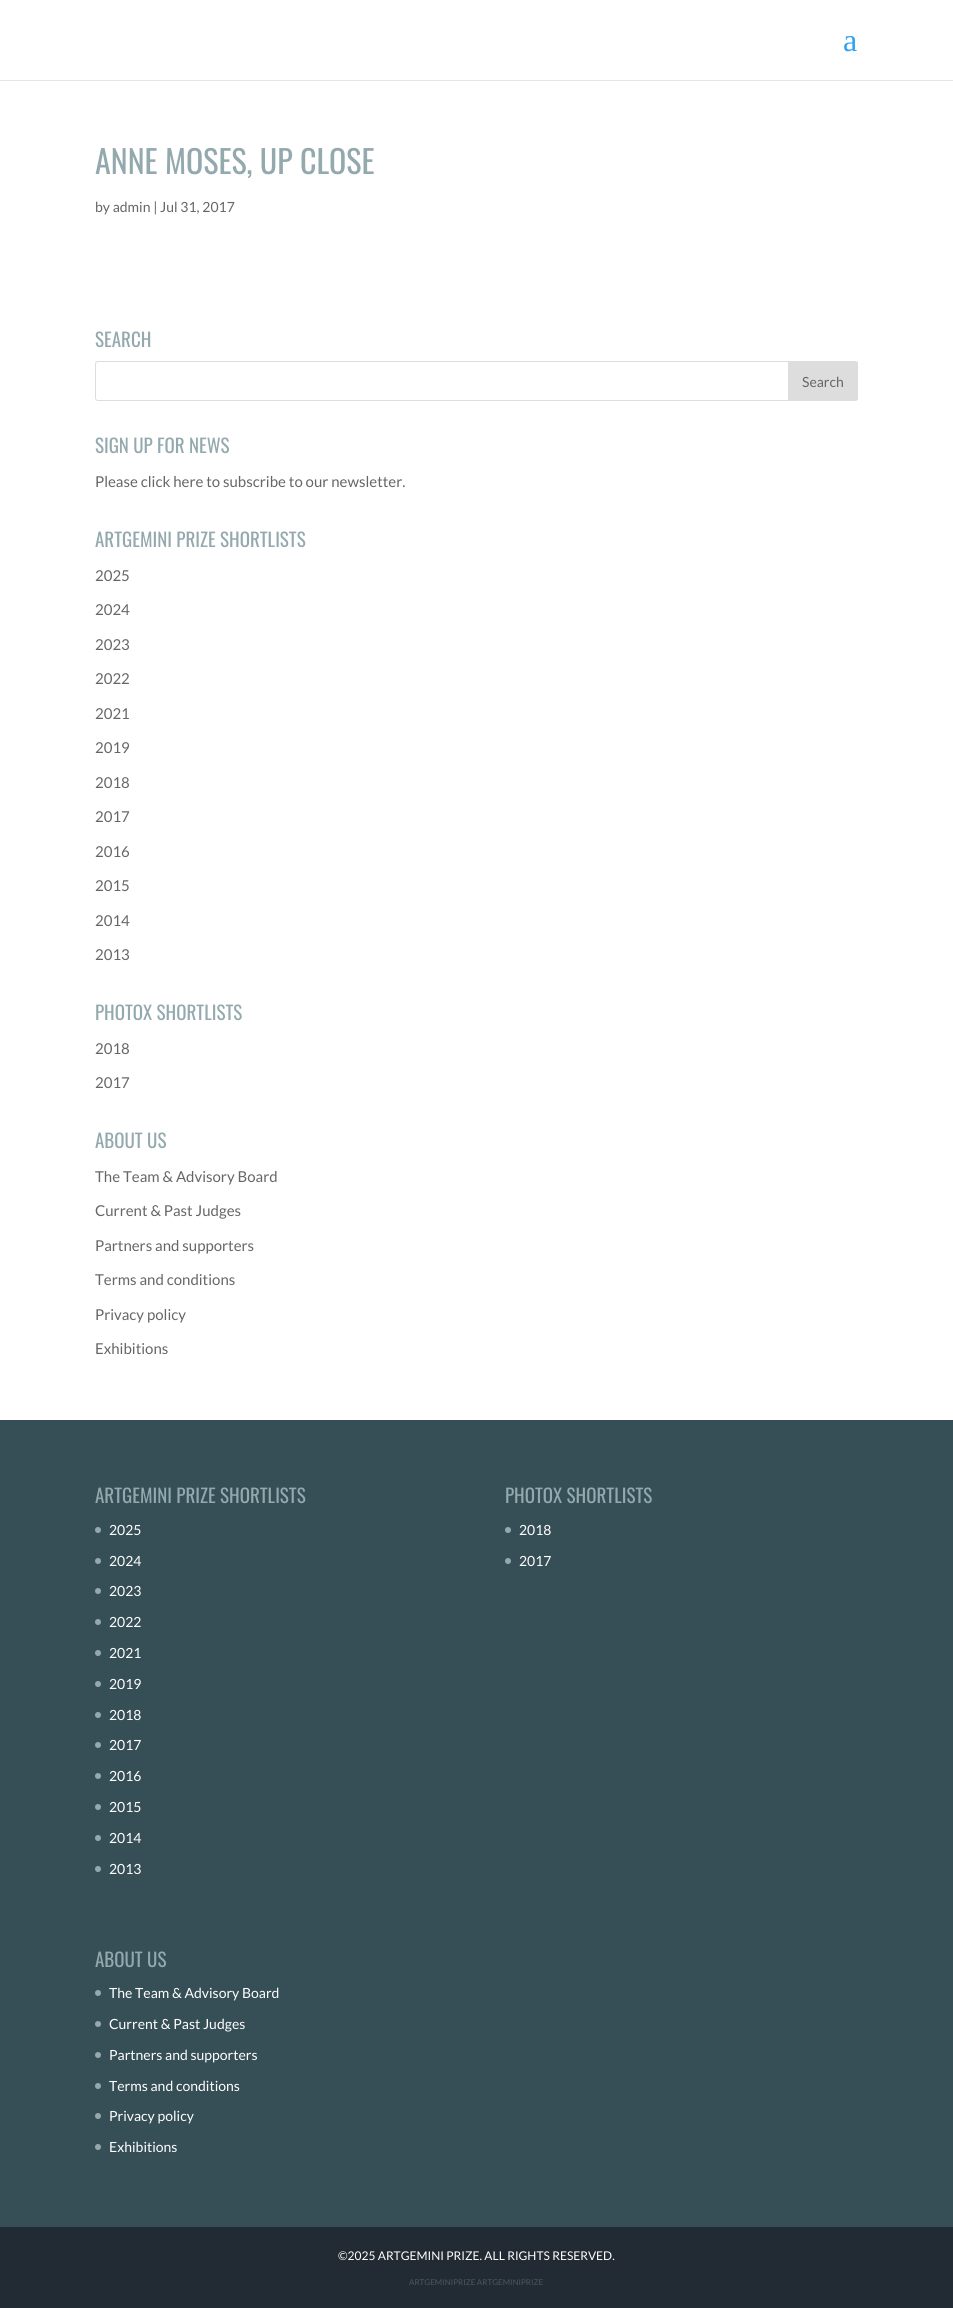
import math
import cairo


def use_color(cr, r, g, b):
  cr.set_source_rgb(r / 255, g / 255, b / 255)

def text(cr, x, y, s, family, size, color, bold=False, italic=False):
  cr.select_font_face(family, cairo.FONT_SLANT_ITALIC if italic else cairo.FONT_SLANT_NORMAL, cairo.FONT_WEIGHT_BOLD if bold else cairo.FONT_WEIGHT_NORMAL)
  cr.set_font_size(size)
  use_color(cr, *color)
  cr.move_to(x, y)
  cr.show_text(s)

def box(cr, x, y, w, h, *color):
  use_color(cr, *color)
  cr.rectangle(x, y, w, h)
  cr.fill()

def round_rect(cr, x, y, w, h, r):
  cr.new_sub_path()
  for i, (u, v) in enumerate([(x + w - r, y + h - r), (x + r, y + h - r), (x + r, y + r), (x + w - r, y + r)]):
    cr.arc(u, v, r, i * math.pi / 2, (i + 1) * math.pi / 2)
  cr.close_path()

def draw(cr):
  use_color(cr, 255, 255, 255)
  cr.paint()
  box(cr, 0, 80, 953, 1, 230, 230, 230)
  round_rect(cr, 95.5, 361.5, 762, 39, 2.5)
  use_color(cr, 221, 221, 221)
  cr.set_line_width(1)
  cr.stroke()
  cr.new_path()
  cr.move_to(788.5, 361.5)
  cr.line_to(855, 361.5)
  cr.curve_to(856.5, 361.5, 857.5, 362.5, 857.5, 364)
  cr.line_to(857.5, 398)
  cr.curve_to(857.5, 399.5, 856.5, 400.5, 855, 400.5)
  cr.line_to(788.5, 400.5)
  cr.close_path()
  cr.fill_preserve()
  cr.stroke()
  box(cr, 0, 1420, 953, 807, 54, 78, 86)
  use_color(cr, 147, 169, 174)
  cr.arc(98, 1530, 3, 0, 2 * math.pi)
  cr.fill()
  cr.arc(98, 1561, 3, 0, 2 * math.pi)
  cr.fill()
  cr.arc(98, 1591, 3, 0, 2 * math.pi)
  cr.fill()
  cr.arc(98, 1622, 3, 0, 2 * math.pi)
  cr.fill()
  cr.arc(98, 1653, 3, 0, 2 * math.pi)
  cr.fill()
  cr.arc(98, 1684, 3, 0, 2 * math.pi)
  cr.fill()
  cr.arc(98, 1715, 3, 0, 2 * math.pi)
  cr.fill()
  cr.arc(98, 1745, 3, 0, 2 * math.pi)
  cr.fill()
  cr.arc(98, 1776, 3, 0, 2 * math.pi)
  cr.fill()
  cr.arc(98, 1807, 3, 0, 2 * math.pi)
  cr.fill()
  cr.arc(98, 1838, 3, 0, 2 * math.pi)
  cr.fill()
  cr.arc(98, 1869, 3, 0, 2 * math.pi)
  cr.fill()
  cr.arc(508, 1530, 3, 0, 2 * math.pi)
  cr.fill()
  cr.arc(508, 1561, 3, 0, 2 * math.pi)
  cr.fill()
  cr.arc(98, 1993, 3, 0, 2 * math.pi)
  cr.fill()
  cr.arc(98, 2024, 3, 0, 2 * math.pi)
  cr.fill()
  cr.arc(98, 2055, 3, 0, 2 * math.pi)
  cr.fill()
  cr.arc(98, 2086, 3, 0, 2 * math.pi)
  cr.fill()
  cr.arc(98, 2116, 3, 0, 2 * math.pi)
  cr.fill()
  cr.arc(98, 2147, 3, 0, 2 * math.pi)
  cr.fill()
  box(cr, 0, 2227, 953, 81, 34, 43, 51)
  text(cr, 843, 51, "a", "Liberation Serif", 32, (46, 163, 242))
  text(cr, 95, 174, "ANNE MOSES, UP CLOSE", "Oswald", 32, (147, 169, 174))
  text(cr, 95, 212, "by admin | Jul 31, 2017", "Lato", 14, (102, 102, 102))
  text(cr, 95, 347, "SEARCH", "Oswald", 19, (147, 169, 174))
  text(cr, 802, 387, "Search", "Lato", 14, (102, 102, 102))
  text(cr, 95, 453, "SIGN UP FOR NEWS", "Oswald", 19, (147, 169, 174))
  text(cr, 95, 487, "Please click here to subscribe to our newsletter.", "Lato", 15, (102, 102, 102))
  text(cr, 95, 547, "ARTGEMINI PRIZE SHORTLISTS", "Oswald", 19, (147, 169, 174))
  text(cr, 95, 581, "2025", "Lato", 15, (102, 102, 102))
  text(cr, 95, 615, "2024", "Lato", 15, (102, 102, 102))
  text(cr, 95, 650, "2023", "Lato", 15, (102, 102, 102))
  text(cr, 95, 684, "2022", "Lato", 15, (102, 102, 102))
  text(cr, 95, 719, "2021", "Lato", 15, (102, 102, 102))
  text(cr, 95, 753, "2019", "Lato", 15, (102, 102, 102))
  text(cr, 95, 788, "2018", "Lato", 15, (102, 102, 102))
  text(cr, 95, 822, "2017", "Lato", 15, (102, 102, 102))
  text(cr, 95, 857, "2016", "Lato", 15, (102, 102, 102))
  text(cr, 95, 891, "2015", "Lato", 15, (102, 102, 102))
  text(cr, 95, 926, "2014", "Lato", 15, (102, 102, 102))
  text(cr, 95, 960, "2013", "Lato", 15, (102, 102, 102))
  text(cr, 95, 1020, "PHOTOX SHORTLISTS", "Oswald", 19, (147, 169, 174))
  text(cr, 95, 1054, "2018", "Lato", 15, (102, 102, 102))
  text(cr, 95, 1088, "2017", "Lato", 15, (102, 102, 102))
  text(cr, 95, 1148, "ABOUT US", "Oswald", 19, (147, 169, 174))
  text(cr, 95, 1182, "The Team & Advisory Board", "Lato", 15, (102, 102, 102))
  text(cr, 95, 1216, "Current & Past Judges", "Lato", 15, (102, 102, 102))
  text(cr, 95, 1251, "Partners and supporters", "Lato", 15, (102, 102, 102))
  text(cr, 95, 1285, "Terms and conditions", "Lato", 15, (102, 102, 102))
  text(cr, 95, 1320, "Privacy policy", "Lato", 15, (102, 102, 102))
  text(cr, 95, 1354, "Exhibitions", "Lato", 15, (102, 102, 102))
  text(cr, 95, 1503, "ARTGEMINI PRIZE SHORTLISTS", "Oswald", 19, (147, 169, 174))
  text(cr, 109, 1535, "2025", "Lato", 14, (255, 255, 255))
  text(cr, 109, 1566, "2024", "Lato", 14, (255, 255, 255))
  text(cr, 109, 1596, "2023", "Lato", 14, (255, 255, 255))
  text(cr, 109, 1627, "2022", "Lato", 14, (255, 255, 255))
  text(cr, 109, 1658, "2021", "Lato", 14, (255, 255, 255))
  text(cr, 109, 1689, "2019", "Lato", 14, (255, 255, 255))
  text(cr, 109, 1720, "2018", "Lato", 14, (255, 255, 255))
  text(cr, 109, 1750, "2017", "Lato", 14, (255, 255, 255))
  text(cr, 109, 1781, "2016", "Lato", 14, (255, 255, 255))
  text(cr, 109, 1812, "2015", "Lato", 14, (255, 255, 255))
  text(cr, 109, 1843, "2014", "Lato", 14, (255, 255, 255))
  text(cr, 109, 1874, "2013", "Lato", 14, (255, 255, 255))
  text(cr, 505, 1503, "PHOTOX SHORTLISTS", "Oswald", 19, (147, 169, 174))
  text(cr, 519, 1535, "2018", "Lato", 14, (255, 255, 255))
  text(cr, 519, 1566, "2017", "Lato", 14, (255, 255, 255))
  text(cr, 95, 1967, "ABOUT US", "Oswald", 19, (147, 169, 174))
  text(cr, 109, 1998, "The Team & Advisory Board", "Lato", 14, (255, 255, 255))
  text(cr, 109, 2029, "Current & Past Judges", "Lato", 14, (255, 255, 255))
  text(cr, 109, 2060, "Partners and supporters", "Lato", 14, (255, 255, 255))
  text(cr, 109, 2091, "Terms and conditions", "Lato", 14, (255, 255, 255))
  text(cr, 109, 2121, "Privacy policy", "Lato", 14, (255, 255, 255))
  text(cr, 109, 2152, "Exhibitions", "Lato", 14, (255, 255, 255))
  text(cr, 338, 2260, "©2025 ARTGEMINI PRIZE. ALL RIGHTS RESERVED.", "Lato", 12, (255, 255, 255))
  text(cr, 409, 2285, "ARTGEMINIPRIZE ARTGEMINIPRIZE", "Lato", 8, (78, 85, 92))


surface = cairo.ImageSurface(cairo.FORMAT_RGB24, 953, 2308)
cr = cairo.Context(surface)
options = cairo.FontOptions()
options.set_hint_metrics(cairo.HINT_METRICS_OFF)
options.set_hint_style(cairo.HINT_STYLE_NONE)
cr.set_font_options(options)
cr.set_miter_limit(4)
draw(cr)
surface.write_to_png("out.png")
